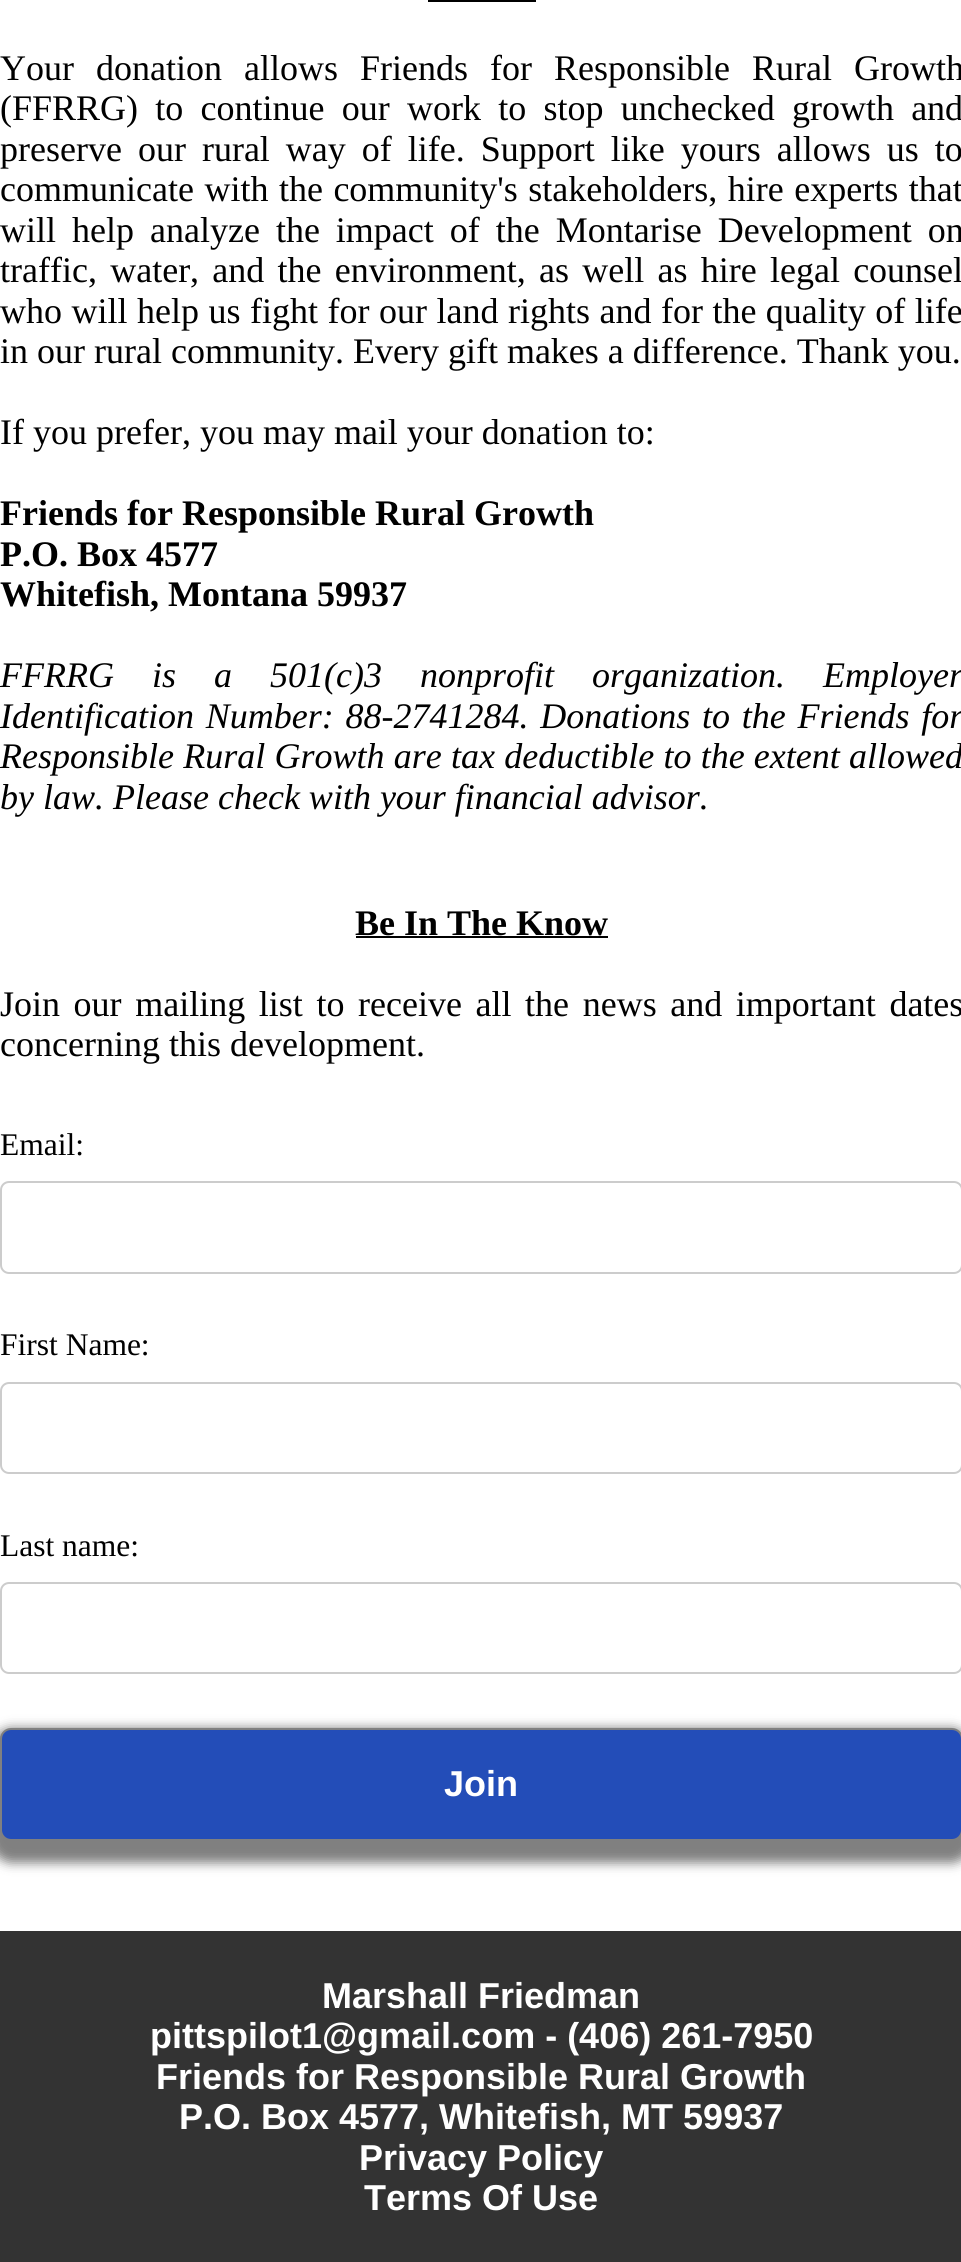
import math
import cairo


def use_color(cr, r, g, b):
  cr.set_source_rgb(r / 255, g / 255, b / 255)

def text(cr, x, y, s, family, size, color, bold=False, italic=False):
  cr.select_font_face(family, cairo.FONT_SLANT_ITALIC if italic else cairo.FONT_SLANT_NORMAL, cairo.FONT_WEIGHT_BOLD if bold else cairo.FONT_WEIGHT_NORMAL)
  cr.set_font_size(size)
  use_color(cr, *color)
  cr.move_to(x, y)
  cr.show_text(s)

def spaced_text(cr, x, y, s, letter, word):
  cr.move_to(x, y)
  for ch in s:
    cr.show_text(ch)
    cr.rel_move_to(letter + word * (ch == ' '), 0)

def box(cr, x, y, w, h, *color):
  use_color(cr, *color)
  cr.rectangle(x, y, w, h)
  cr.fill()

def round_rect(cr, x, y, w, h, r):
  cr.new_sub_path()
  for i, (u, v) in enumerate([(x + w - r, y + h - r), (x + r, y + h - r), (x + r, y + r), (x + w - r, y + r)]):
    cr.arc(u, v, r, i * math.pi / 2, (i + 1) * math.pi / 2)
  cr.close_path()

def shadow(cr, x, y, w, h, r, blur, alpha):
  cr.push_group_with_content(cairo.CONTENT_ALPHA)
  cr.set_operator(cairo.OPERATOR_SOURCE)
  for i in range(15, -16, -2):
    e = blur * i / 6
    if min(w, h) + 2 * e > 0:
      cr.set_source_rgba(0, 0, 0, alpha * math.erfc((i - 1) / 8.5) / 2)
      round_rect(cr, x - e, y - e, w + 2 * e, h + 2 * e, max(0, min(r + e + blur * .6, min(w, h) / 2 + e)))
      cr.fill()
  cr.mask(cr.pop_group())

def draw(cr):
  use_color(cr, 255, 255, 255)
  cr.paint()
  box(cr, 428, 0, 108, 2, 0, 0, 0)
  box(cr, 356, 936, 252, 2, 0, 0, 0)
  round_rect(cr, 1, 1182, 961, 91, 8)
  use_color(cr, 204, 204, 204)
  cr.stroke()
  round_rect(cr, 1, 1383, 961, 90, 8)
  cr.stroke()
  round_rect(cr, 1, 1583, 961, 90, 8)
  cr.stroke()
  use_color(cr, 0, 0, 0)
  shadow(cr, -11, 1728, 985, 135, 23, 5.5, 0.5)
  use_color(cr, 35, 77, 184)
  round_rect(cr, 1, 1729, 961, 111, 10)
  cr.fill_preserve()
  use_color(cr, 128, 128, 128)
  cr.stroke()
  box(cr, 0, 1931, 961, 331, 51, 51, 51)
  cr.select_font_face("Liberation Serif")
  cr.set_font_size(36)
  use_color(cr, 0, 0, 0)
  spaced_text(cr, 0, 80, "Your donation allows Friends for Responsible Rural Growth", 0, 13)
  spaced_text(cr, 0, 120, "(FFRRG) to continue our work to stop unchecked growth and", 0, 8.25)
  spaced_text(cr, 0, 161, "preserve our rural way of life. Support like yours allows us to", 0, 7)
  spaced_text(cr, 0, 201, "communicate with the community's stakeholders, hire experts that", 0, 1.5)
  spaced_text(cr, 0, 242, "will help analyze the impact of the Montarise Development on", 0, 7)
  spaced_text(cr, 0, 282, "traffic, water, and the environment, as well as hire legal counsel", 0, 4.25)
  spaced_text(cr, 0, 323, "who will help us fight for our land rights and for the quality of life", 0, 0.5)
  text(cr, 0, 363, "in our rural community. Every gift makes a difference. Thank you.", "Liberation Serif", 36, (0, 0, 0))
  text(cr, 0, 444, "If you prefer, you may mail your donation to:", "Liberation Serif", 36, (0, 0, 0))
  text(cr, 0, 525, "Friends for Responsible Rural Growth", "Liberation Serif", 36, (0, 0, 0), bold=True)
  text(cr, 0, 566, "P.O. Box 4577", "Liberation Serif", 36, (0, 0, 0), bold=True)
  text(cr, 0, 606, "Whitefish, Montana 59937", "Liberation Serif", 36, (0, 0, 0), bold=True)
  cr.select_font_face("Liberation Serif", cairo.FONT_SLANT_ITALIC)
  spaced_text(cr, 0, 687, "FFRRG is a 501(c)3 nonprofit organization. Employer", 0, 29)
  spaced_text(cr, 0, 728, "Identification Number: 88-2741284. Donations to the Friends for", 0, 2.75)
  spaced_text(cr, 0, 768, "Responsible Rural Growth are tax deductible to the extent allowed", 0, 0.25)
  text(cr, 0, 809, "by law. Please check with your financial advisor.", "Liberation Serif", 36, (0, 0, 0), italic=True)
  text(cr, 355, 935, "Be In The Know", "Liberation Serif", 36, (0, 0, 0), bold=True)
  cr.select_font_face("Liberation Serif")
  spaced_text(cr, 0, 1016, "Join our mailing list to receive all the news and important dates", 0, 4.6)
  text(cr, 0, 1056, "concerning this development.", "Liberation Serif", 36, (0, 0, 0))
  text(cr, 0, 1155, "Email:", "Liberation Serif", 31.5, (0, 0, 0))
  text(cr, 0, 1355, "First Name:", "Liberation Serif", 31.5, (0, 0, 0))
  text(cr, 0, 1556, "Last name:", "Liberation Serif", 31.5, (0, 0, 0))
  text(cr, 444, 1796, "Join", "Liberation Sans", 36, (255, 255, 255), bold=True)
  text(cr, 322, 2008, "Marshall Friedman", "Liberation Sans", 36, (255, 255, 255), bold=True)
  text(cr, 150, 2048, "pittspilot1@gmail.com - (406) 261-7950", "Liberation Sans", 36, (255, 255, 255), bold=True)
  text(cr, 156, 2089, "Friends for Responsible Rural Growth", "Liberation Sans", 36, (255, 255, 255), bold=True)
  text(cr, 179, 2129, "P.O. Box 4577, Whitefish, MT 59937", "Liberation Sans", 36, (255, 255, 255), bold=True)
  text(cr, 359, 2170, "Privacy Policy", "Liberation Sans", 36, (255, 255, 255), bold=True)
  text(cr, 364, 2210, "Terms Of Use", "Liberation Sans", 36, (255, 255, 255), bold=True)


surface = cairo.ImageSurface(cairo.FORMAT_RGB24, 961, 2262)
cr = cairo.Context(surface)
options = cairo.FontOptions()
options.set_hint_metrics(cairo.HINT_METRICS_OFF)
options.set_hint_style(cairo.HINT_STYLE_NONE)
cr.set_font_options(options)
cr.set_miter_limit(4)
draw(cr)
surface.write_to_png("out.png")
